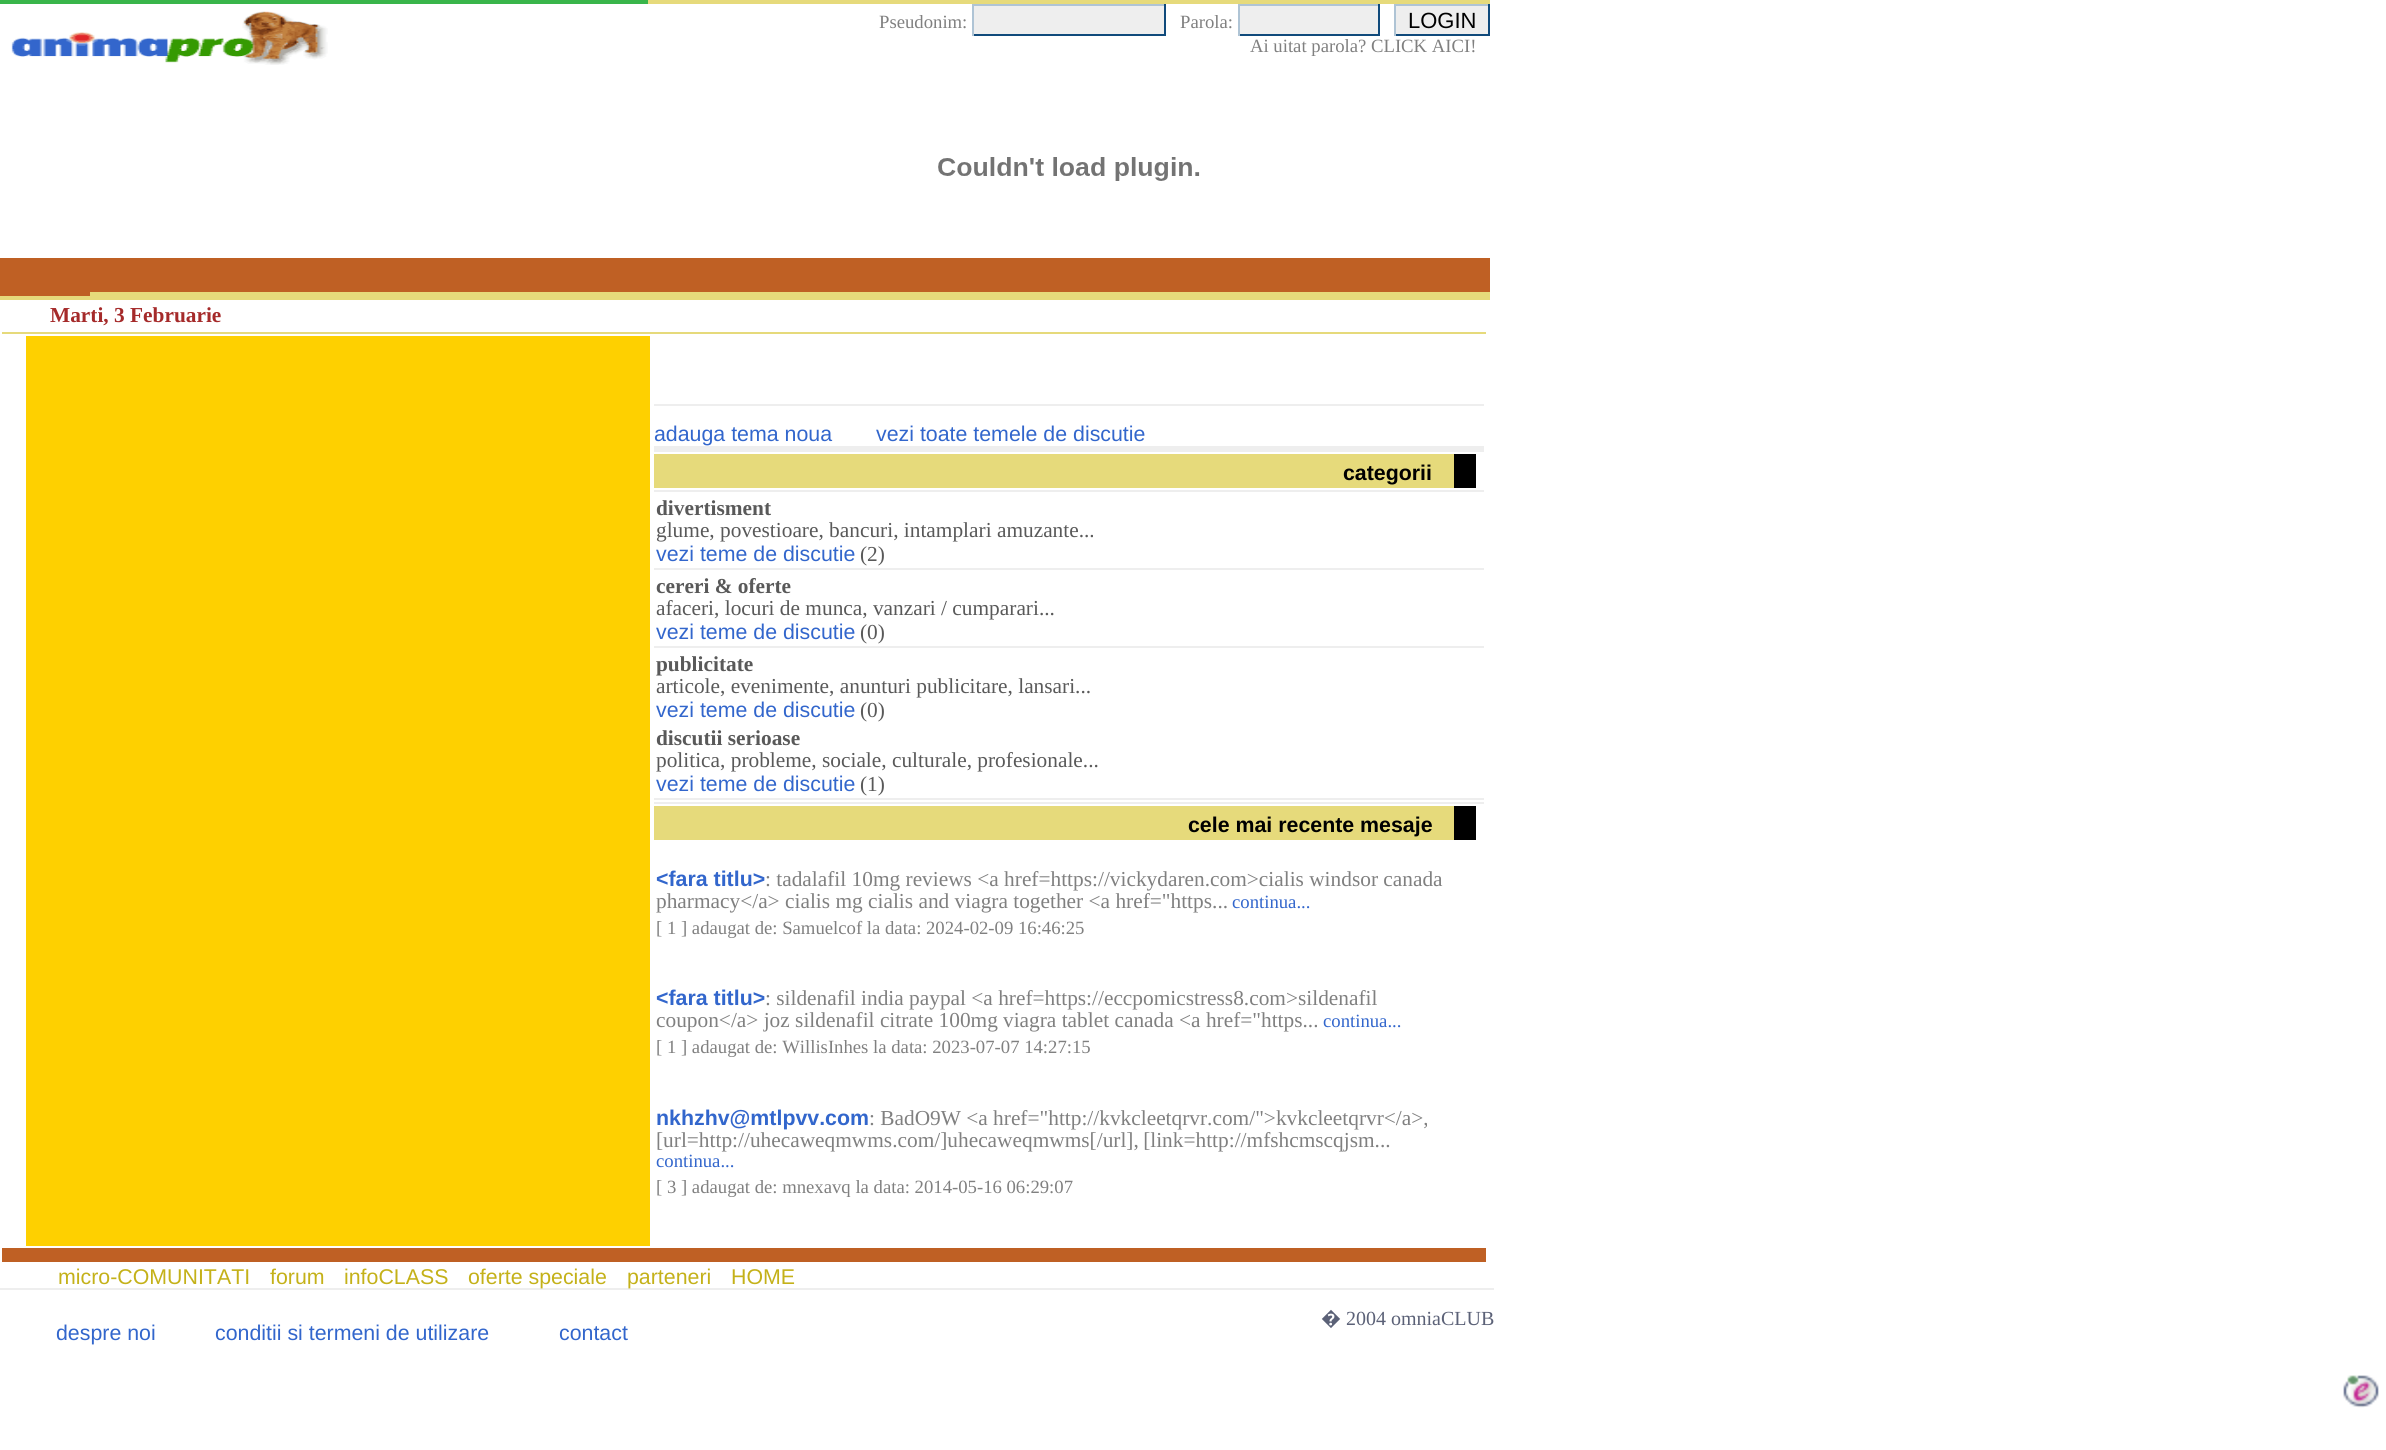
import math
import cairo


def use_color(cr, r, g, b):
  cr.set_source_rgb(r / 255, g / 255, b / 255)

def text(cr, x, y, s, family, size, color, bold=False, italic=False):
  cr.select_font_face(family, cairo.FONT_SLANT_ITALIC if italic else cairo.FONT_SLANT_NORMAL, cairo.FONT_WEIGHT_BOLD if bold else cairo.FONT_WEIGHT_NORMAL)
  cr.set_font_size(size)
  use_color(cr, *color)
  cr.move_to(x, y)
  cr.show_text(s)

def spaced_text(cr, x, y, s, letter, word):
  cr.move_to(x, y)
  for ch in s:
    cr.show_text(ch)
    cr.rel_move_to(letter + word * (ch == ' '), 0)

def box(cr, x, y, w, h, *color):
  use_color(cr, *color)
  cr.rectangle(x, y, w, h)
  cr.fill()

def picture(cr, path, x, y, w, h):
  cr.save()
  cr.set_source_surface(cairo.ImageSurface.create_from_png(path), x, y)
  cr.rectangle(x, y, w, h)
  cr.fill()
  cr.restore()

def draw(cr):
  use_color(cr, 255, 255, 255)
  cr.paint()
  box(cr, 0, 0, 648, 4, 57, 181, 74)
  box(cr, 648, 0, 842, 4, 230, 218, 123)
  picture(cr, "img_01.png", 11, 11, 317, 54)
  box(cr, 974, 6, 190, 28, 238, 238, 238)
  box(cr, 972, 4, 194, 2, 175, 196, 213)
  box(cr, 1164, 4, 2, 32, 16, 74, 123)
  box(cr, 972, 34, 194, 2, 16, 74, 123)
  box(cr, 972, 4, 2, 32, 175, 196, 213)
  box(cr, 1240, 6, 138, 28, 238, 238, 238)
  box(cr, 1238, 4, 142, 2, 175, 196, 213)
  box(cr, 1378, 4, 2, 32, 16, 74, 123)
  box(cr, 1238, 34, 142, 2, 16, 74, 123)
  box(cr, 1238, 4, 2, 32, 175, 196, 213)
  box(cr, 1396, 6, 92, 28, 238, 238, 238)
  box(cr, 1394, 4, 96, 2, 175, 196, 213)
  box(cr, 1488, 4, 2, 32, 16, 74, 123)
  box(cr, 1394, 34, 96, 2, 16, 74, 123)
  box(cr, 1394, 4, 2, 32, 175, 196, 213)
  picture(cr, "img_02.png", 938, 157, 262, 24)
  box(cr, 0, 258, 1490, 38, 191, 96, 36)
  box(cr, 90, 292, 1400, 4, 230, 218, 123)
  box(cr, 0, 296, 1490, 4, 230, 218, 123)
  box(cr, 2, 332, 1484, 2, 230, 218, 123)
  box(cr, 26, 336, 624, 910, 254, 208, 0)
  box(cr, 654, 404, 830, 2, 238, 238, 238)
  box(cr, 654, 446, 830, 6, 238, 238, 238)
  box(cr, 654, 454, 800, 34, 230, 218, 123)
  box(cr, 1454, 454, 22, 34, 0, 0, 0)
  box(cr, 654, 490, 830, 2, 238, 238, 238)
  box(cr, 654, 568, 830, 2, 238, 238, 238)
  box(cr, 654, 646, 830, 2, 238, 238, 238)
  box(cr, 654, 798, 830, 2, 238, 238, 238)
  box(cr, 654, 802, 830, 2, 238, 238, 238)
  box(cr, 654, 806, 800, 34, 230, 218, 123)
  box(cr, 1454, 806, 22, 34, 0, 0, 0)
  box(cr, 2, 1248, 1484, 14, 191, 96, 36)
  box(cr, 0, 1288, 1494, 2, 238, 238, 238)
  picture(cr, "img_03.png", 2343, 1375, 36, 33)
  text(cr, 879, 28, "Pseudonim:", "Liberation Serif", 18.7, (128, 128, 128))
  text(cr, 1180, 28, "Parola:", "Liberation Serif", 18.7, (128, 128, 128))
  text(cr, 1408, 28, "LOGIN", "Liberation Sans", 22, (0, 0, 0))
  text(cr, 1250, 52, "Ai uitat parola? CLICK AICI!", "Liberation Serif", 18.7, (128, 128, 128))
  text(cr, 50, 322, "Marti, 3 Februarie", "Liberation Serif", 21.35, (165, 42, 42), bold=True)
  text(cr, 654, 441, "adauga tema noua", "Liberation Sans", 21.35, (50, 102, 204))
  text(cr, 876, 441, "vezi toate temele de discutie", "Liberation Sans", 21.35, (50, 102, 204))
  text(cr, 1343, 480, "categorii", "Liberation Sans", 21.35, (0, 0, 0), bold=True)
  text(cr, 656, 515, "divertisment", "Liberation Serif", 21.35, (89, 89, 89), bold=True)
  text(cr, 656, 537, "glume, povestioare, bancuri, intamplari amuzante...", "Liberation Serif", 21.35, (89, 89, 89))
  text(cr, 656, 561, "vezi teme de discutie", "Liberation Sans", 21.35, (50, 102, 204))
  text(cr, 860, 561, "(2)", "Liberation Serif", 21.35, (89, 89, 89))
  text(cr, 656, 593, "cereri & oferte", "Liberation Serif", 21.35, (89, 89, 89), bold=True)
  text(cr, 656, 615, "afaceri, locuri de munca, vanzari / cumparari...", "Liberation Serif", 21.35, (89, 89, 89))
  text(cr, 656, 639, "vezi teme de discutie", "Liberation Sans", 21.35, (50, 102, 204))
  text(cr, 860, 639, "(0)", "Liberation Serif", 21.35, (89, 89, 89))
  text(cr, 656, 671, "publicitate", "Liberation Serif", 21.35, (89, 89, 89), bold=True)
  text(cr, 656, 693, "articole, evenimente, anunturi publicitare, lansari...", "Liberation Serif", 21.35, (89, 89, 89))
  text(cr, 656, 717, "vezi teme de discutie", "Liberation Sans", 21.35, (50, 102, 204))
  text(cr, 860, 717, "(0)", "Liberation Serif", 21.35, (89, 89, 89))
  text(cr, 656, 745, "discutii serioase", "Liberation Serif", 21.35, (89, 89, 89), bold=True)
  text(cr, 656, 767, "politica, probleme, sociale, culturale, profesionale...", "Liberation Serif", 21.35, (89, 89, 89))
  text(cr, 656, 791, "vezi teme de discutie", "Liberation Sans", 21.35, (50, 102, 204))
  text(cr, 860, 791, "(1)", "Liberation Serif", 21.35, (89, 89, 89))
  text(cr, 1188, 832, "cele mai recente mesaje", "Liberation Sans", 21.35, (0, 0, 0), bold=True)
  text(cr, 656, 886, "<fara titlu>", "Liberation Sans", 21.35, (50, 102, 204), bold=True)
  text(cr, 765, 886, ": tadalafil 10mg reviews <a href=https://vickydaren.com>cialis windsor canada", "Liberation Serif", 21.35, (128, 128, 128))
  text(cr, 656, 908, "pharmacy</a> cialis mg cialis and viagra together <a href=\"https...", "Liberation Serif", 21.35, (128, 128, 128))
  text(cr, 1232, 908, "continua...", "Liberation Serif", 18.7, (50, 102, 204))
  text(cr, 656, 934, "[ 1 ] adaugat de: Samuelcof la data: 2024-02-09 16:46:25", "Liberation Serif", 18.7, (128, 128, 128))
  text(cr, 656, 1005, "<fara titlu>", "Liberation Sans", 21.35, (50, 102, 204), bold=True)
  text(cr, 765, 1005, ": sildenafil india paypal <a href=https://eccpomicstress8.com>sildenafil", "Liberation Serif", 21.35, (128, 128, 128))
  text(cr, 656, 1027, "coupon</a> joz sildenafil citrate 100mg", "Liberation Serif", 21.35, (128, 128, 128))
  text(cr, 1003, 1027, "viagra tablet canada <a href=\"https...", "Liberation Serif", 21.35, (128, 128, 128))
  text(cr, 1323, 1027, "continua...", "Liberation Serif", 18.7, (50, 102, 204))
  text(cr, 656, 1053, "[ 1 ] adaugat de: WillisInhes la data: 2023-07-07 14:27:15", "Liberation Serif", 18.7, (128, 128, 128))
  text(cr, 656, 1125, "nkhzhv@mtlpvv.com", "Liberation Sans", 21.35, (50, 102, 204), bold=True)
  text(cr, 869, 1125, ": BadO9W <a href=\"http://kvkcleetqrvr.com/\">kvkcleetqrvr</a>,", "Liberation Serif", 21.35, (128, 128, 128))
  spaced_text(cr, 656, 1147, "[url=http://uhecaweqmwms.com/]uhecaweqmwms[/url], [link=http://mfshcmscqjsm...", 0, -1)
  text(cr, 656, 1167, "continua...", "Liberation Serif", 18.7, (50, 102, 204))
  text(cr, 656, 1193, "[ 3 ] adaugat de: mnexavq la data: 2014-05-16 06:29:07", "Liberation Serif", 18.7, (128, 128, 128))
  text(cr, 58, 1284, "micro-COMUNITATI", "Liberation Sans", 21.35, (196, 177, 25))
  text(cr, 270, 1284, "forum", "Liberation Sans", 21.35, (196, 177, 25))
  text(cr, 344, 1284, "infoCLASS", "Liberation Sans", 21.35, (196, 177, 25))
  text(cr, 468, 1284, "oferte speciale", "Liberation Sans", 21.35, (196, 177, 25))
  text(cr, 627, 1284, "parteneri", "Liberation Sans", 21.35, (196, 177, 25))
  text(cr, 731, 1284, "HOME", "Liberation Sans", 21.35, (196, 177, 25))
  text(cr, 1321, 1325, "�", "Noto Sans", 20, (91, 97, 119))
  text(cr, 1346, 1325, "2004 omniaCLUB", "Liberation Serif", 20, (91, 97, 119))
  text(cr, 56, 1340, "despre noi", "Liberation Sans", 21.35, (50, 102, 204))
  text(cr, 215, 1340, "conditii si termeni de utilizare", "Liberation Sans", 21.35, (50, 102, 204))
  text(cr, 559, 1340, "contact", "Liberation Sans", 21.35, (50, 102, 204))


surface = cairo.ImageSurface(cairo.FORMAT_RGB24, 2386, 1450)
cr = cairo.Context(surface)
options = cairo.FontOptions()
options.set_hint_metrics(cairo.HINT_METRICS_OFF)
options.set_hint_style(cairo.HINT_STYLE_NONE)
cr.set_font_options(options)
cr.set_miter_limit(4)
draw(cr)
surface.write_to_png("out.png")
